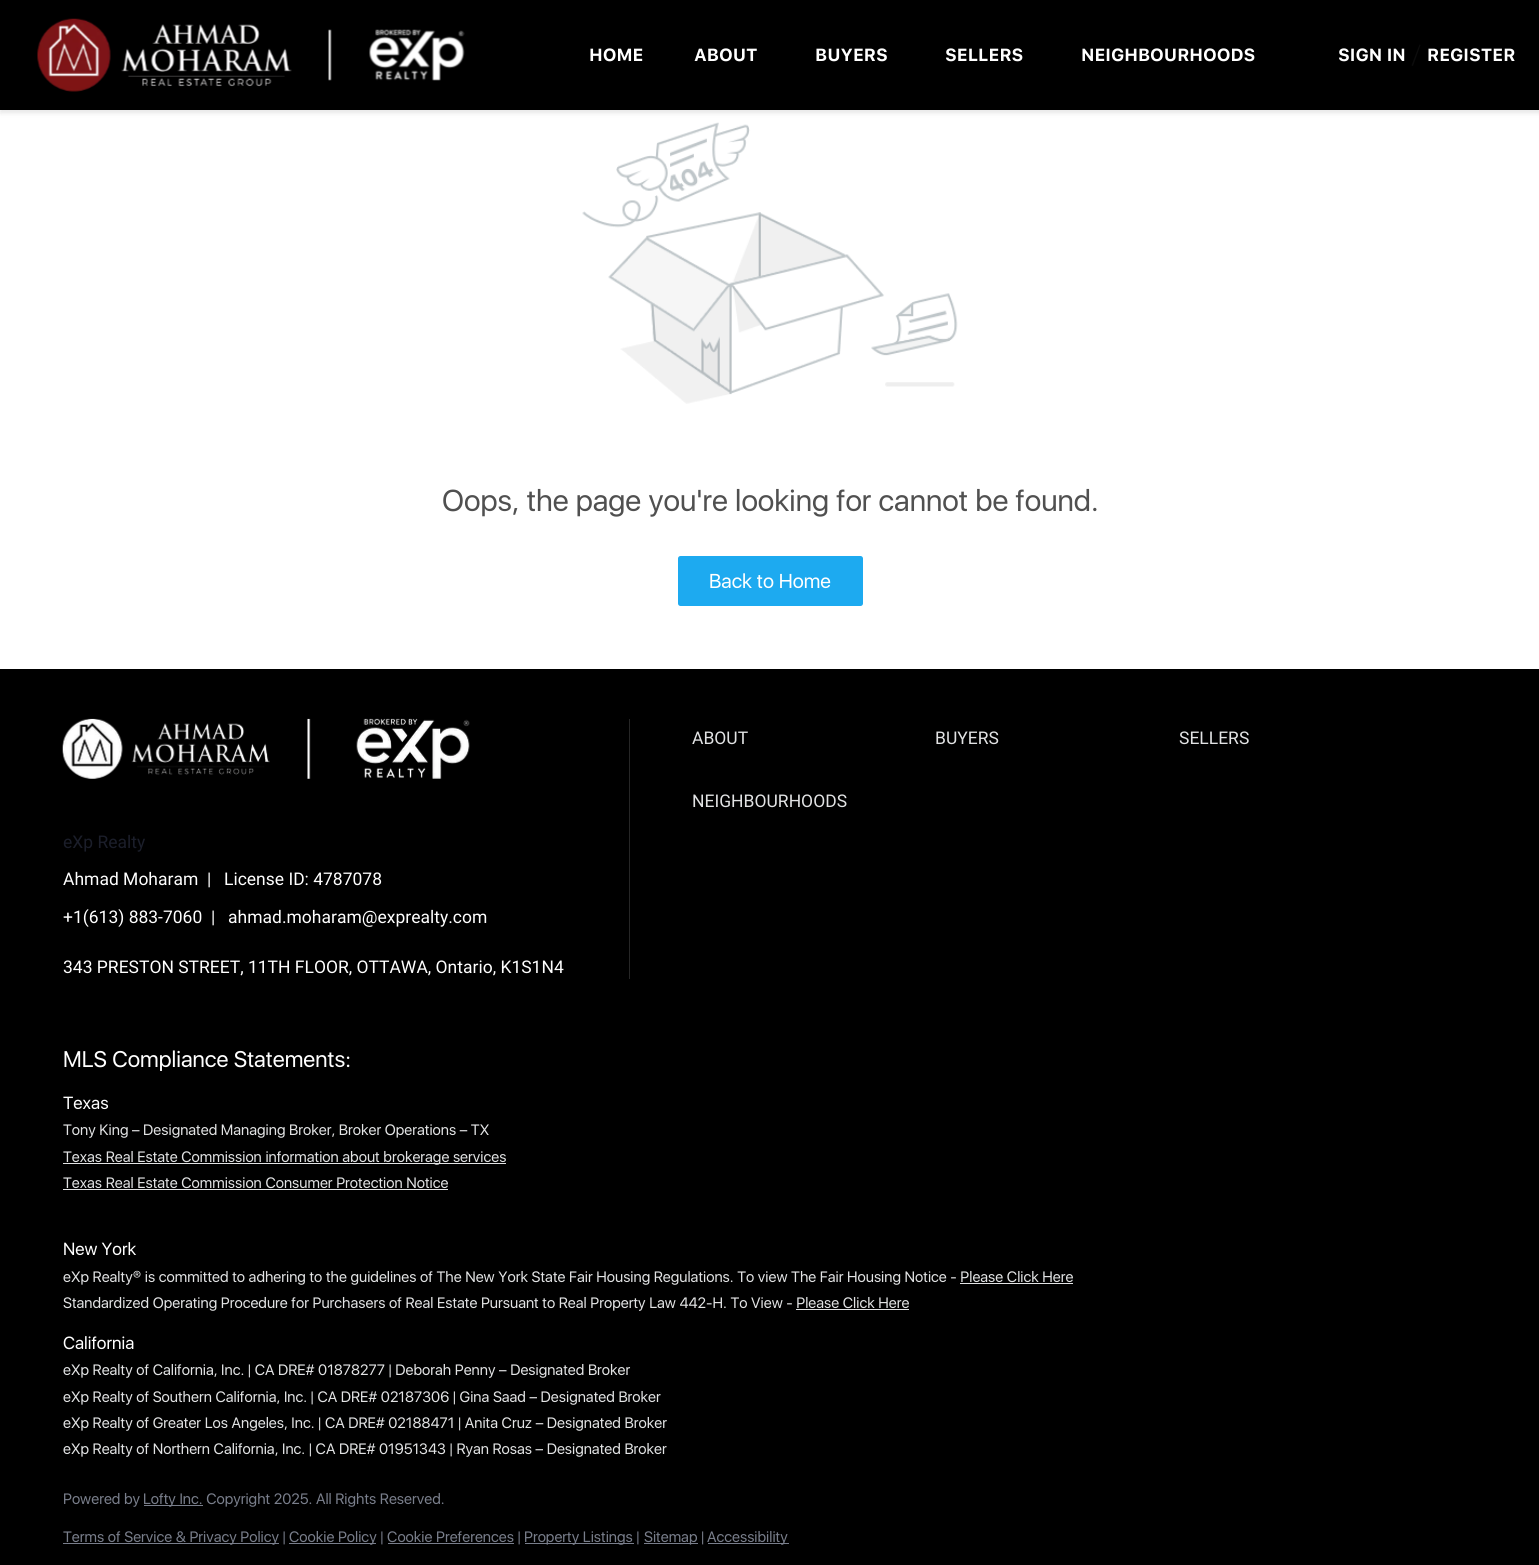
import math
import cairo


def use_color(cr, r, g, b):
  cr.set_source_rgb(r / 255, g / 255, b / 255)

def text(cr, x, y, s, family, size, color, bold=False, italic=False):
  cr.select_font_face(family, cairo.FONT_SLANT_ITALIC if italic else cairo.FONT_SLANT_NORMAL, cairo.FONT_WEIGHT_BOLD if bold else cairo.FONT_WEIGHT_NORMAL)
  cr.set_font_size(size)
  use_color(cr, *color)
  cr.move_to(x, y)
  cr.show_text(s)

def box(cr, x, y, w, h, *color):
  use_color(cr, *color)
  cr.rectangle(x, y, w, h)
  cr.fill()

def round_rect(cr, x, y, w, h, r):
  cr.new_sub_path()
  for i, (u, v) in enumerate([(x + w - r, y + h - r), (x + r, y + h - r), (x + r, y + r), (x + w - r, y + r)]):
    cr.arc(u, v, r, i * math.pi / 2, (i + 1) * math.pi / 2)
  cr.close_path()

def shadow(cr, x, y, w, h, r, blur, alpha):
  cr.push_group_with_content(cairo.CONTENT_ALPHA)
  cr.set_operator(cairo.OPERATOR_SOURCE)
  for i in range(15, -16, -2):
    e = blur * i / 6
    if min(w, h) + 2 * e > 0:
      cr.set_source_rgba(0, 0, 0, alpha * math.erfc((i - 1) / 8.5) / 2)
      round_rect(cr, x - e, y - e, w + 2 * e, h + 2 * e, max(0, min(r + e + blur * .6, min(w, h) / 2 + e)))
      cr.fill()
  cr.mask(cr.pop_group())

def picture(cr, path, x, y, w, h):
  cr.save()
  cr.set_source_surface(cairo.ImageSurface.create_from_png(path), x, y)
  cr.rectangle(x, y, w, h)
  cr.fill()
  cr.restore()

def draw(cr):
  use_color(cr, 255, 255, 255)
  cr.paint()
  use_color(cr, 0, 0, 0)
  shadow(cr, 0, 3, 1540, 110, 0, 2.5, 0.1)
  box(cr, 0, 0, 1539, 110, 0, 0, 0)
  picture(cr, "img_01.png", 37, 18, 255, 74)
  picture(cr, "img_02.png", 328, 29, 137, 52)
  use_color(cr, 12, 12, 12)
  cr.new_path()
  cr.move_to(1419.5, 44.5)
  cr.line_to(1420.5, 45)
  cr.line_to(1413, 66)
  cr.line_to(1411.5, 65.5)
  cr.close_path()
  cr.fill()
  picture(cr, "img_03.png", 582, 122, 376, 282)
  use_color(cr, 29, 170, 240)
  round_rect(cr, 678, 556, 185, 50, 2.5)
  cr.fill()
  box(cr, 0, 669, 1539, 896, 0, 0, 0)
  box(cr, 629, 719, 1, 260, 38, 38, 38)
  picture(cr, "img_04.png", 62, 718, 208, 61)
  picture(cr, "img_05.png", 307, 718, 163, 61)
  box(cr, 63, 1163, 443, 1, 226, 227, 228)
  box(cr, 63, 1189, 385, 1, 226, 227, 228)
  box(cr, 960, 1283, 113, 1, 226, 227, 228)
  box(cr, 796, 1309, 113, 1, 226, 227, 228)
  box(cr, 144, 1505, 59, 1, 121, 126, 139)
  box(cr, 63, 1543, 216, 1, 121, 126, 139)
  box(cr, 289, 1543, 87, 1, 121, 126, 139)
  box(cr, 525, 1543, 109, 1, 121, 126, 139)
  box(cr, 644, 1543, 54, 1, 121, 126, 139)
  box(cr, 708, 1543, 81, 1, 121, 126, 139)
  box(cr, 388, 1543, 126, 1, 121, 126, 139)
  text(cr, 589, 61, "HOME", "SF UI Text", 17.5, (255, 255, 255), bold=True)
  text(cr, 694, 61, "ABOUT", "SF UI Text", 17.5, (255, 255, 255), bold=True)
  text(cr, 815, 61, "BUYERS", "SF UI Text", 17.5, (255, 255, 255), bold=True)
  text(cr, 945, 61, "SELLERS", "SF UI Text", 17.5, (255, 255, 255), bold=True)
  text(cr, 1081, 61, "NEIGHBOURHOODS", "SF UI Text", 17.5, (255, 255, 255), bold=True)
  text(cr, 1338, 61, "SIGN IN", "SF UI Text", 17.5, (255, 255, 255), bold=True)
  text(cr, 1427, 61, "REGISTER", "SF UI Text", 17.5, (255, 255, 255), bold=True)
  text(cr, 442, 511, "Oops, the page you're looking for cannot be found.", "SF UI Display", 30, (80, 80, 80))
  text(cr, 709, 588, "Back to Home", "SF UI Display", 20, (255, 255, 255))
  text(cr, 692, 744, "ABOUT", "Roboto", 17.5, (226, 227, 228))
  text(cr, 692, 807, "NEIGHBOURHOODS", "Roboto", 17.5, (226, 227, 228))
  text(cr, 935, 744, "BUYERS", "Roboto", 17.5, (226, 227, 228))
  text(cr, 1179, 744, "SELLERS", "Roboto", 17.5, (226, 227, 228))
  text(cr, 63, 848, "eXp Realty", "Roboto", 17.5, (27, 30, 42))
  text(cr, 63, 885, "Ahmad Moharam", "Roboto", 17.5, (255, 255, 255))
  text(cr, 207, 885, "|", "Roboto", 17.5, (255, 255, 255))
  text(cr, 224, 885, "License ID: 4787078", "Roboto", 17.5, (255, 255, 255))
  text(cr, 63, 923, "+1(613) 883-7060", "Roboto", 17.5, (255, 255, 255))
  text(cr, 211, 923, "|", "Roboto", 17.5, (255, 255, 255))
  text(cr, 228, 923, "ahmad.moharam@exprealty.com", "Roboto", 17.5, (255, 255, 255))
  text(cr, 63, 973, "343 PRESTON STREET, 11TH FLOOR, OTTAWA, Ontario, K1S1N4", "Roboto", 17.5, (255, 255, 255))
  text(cr, 63, 1067, "MLS Compliance Statements:", "SF UI Display", 22.5, (255, 255, 255))
  text(cr, 63, 1109, "Texas", "SF UI Display", 17.5, (255, 255, 255))
  text(cr, 63, 1135, "Tony King – Designated Managing Broker, Broker Operations – TX", "SF UI Display", 15, (226, 227, 228))
  text(cr, 63, 1162, "Texas Real Estate Commission information about brokerage services", "SF UI Display", 15, (226, 227, 228))
  text(cr, 63, 1188, "Texas Real Estate Commission Consumer Protection Notice", "SF UI Display", 15, (226, 227, 228))
  text(cr, 63, 1255, "New York", "SF UI Display", 17.5, (255, 255, 255))
  text(cr, 63, 1282, "eXp Realty® is committed to adhering to the guidelines of The New York State Fair Housing Regulations. To view The Fair Housing Notice - Please Click Here", "SF UI Display", 15, (226, 227, 228))
  text(cr, 63, 1308, "Standardized Operating Procedure for Purchasers of Real Estate Pursuant to Real Property Law 442-H. To View - Please Click Here", "SF UI Display", 15, (226, 227, 228))
  text(cr, 63, 1349, "California", "SF UI Display", 17.5, (255, 255, 255))
  text(cr, 63, 1375, "eXp Realty of California, Inc. | CA DRE# 01878277 | Deborah Penny – Designated Broker", "SF UI Display", 15, (226, 227, 228))
  text(cr, 63, 1402, "eXp Realty of Southern California, Inc. | CA DRE# 02187306 | Gina Saad – Designated Broker", "SF UI Display", 15, (226, 227, 228))
  text(cr, 63, 1428, "eXp Realty of Greater Los Angeles, Inc. | CA DRE# 02188471 | Anita Cruz – Designated Broker", "SF UI Display", 15, (226, 227, 228))
  text(cr, 63, 1454, "eXp Realty of Northern California, Inc. | CA DRE# 01951343 | Ryan Rosas – Designated Broker", "SF UI Display", 15, (226, 227, 228))
  text(cr, 63, 1504, "Powered by", "SF UI Display", 15, (121, 126, 139))
  text(cr, 143, 1504, "Lofty Inc. Copyright 2025. All Rights Reserved.", "SF UI Display", 15, (121, 126, 139))
  text(cr, 63, 1542, "Terms of Service & Privacy Policy |", "SF UI Display", 15, (121, 126, 139))
  text(cr, 289, 1542, "Cookie Policy | Cookie Preferences |", "SF UI Display", 15, (121, 126, 139))
  text(cr, 524, 1542, "Property Listings |", "SF UI Display", 15, (121, 126, 139))
  text(cr, 644, 1542, "Sitemap |", "SF UI Display", 15, (121, 126, 139))
  text(cr, 707, 1542, "Accessibility", "SF UI Display", 15, (121, 126, 139))


surface = cairo.ImageSurface(cairo.FORMAT_RGB24, 1539, 1565)
cr = cairo.Context(surface)
options = cairo.FontOptions()
options.set_hint_metrics(cairo.HINT_METRICS_OFF)
options.set_hint_style(cairo.HINT_STYLE_NONE)
cr.set_font_options(options)
cr.set_miter_limit(4)
draw(cr)
surface.write_to_png("out.png")
